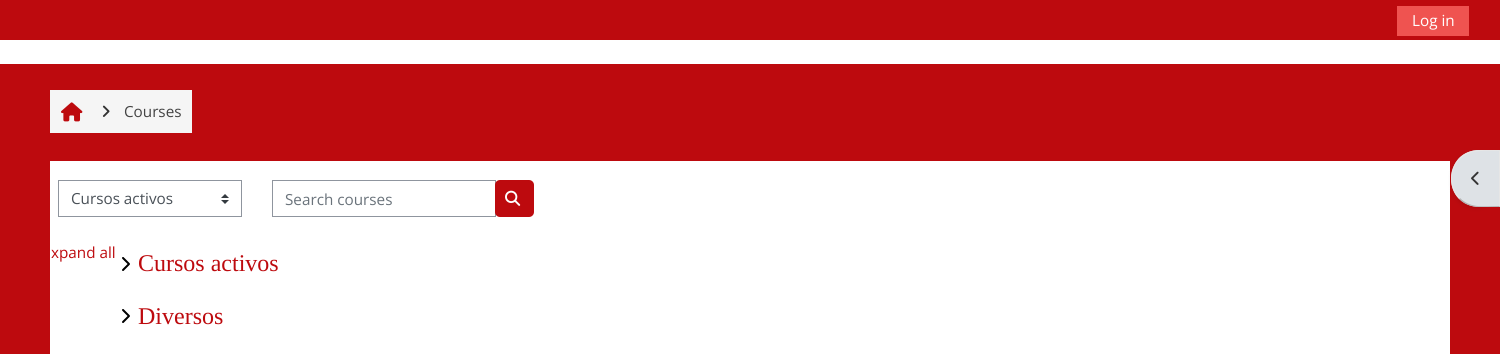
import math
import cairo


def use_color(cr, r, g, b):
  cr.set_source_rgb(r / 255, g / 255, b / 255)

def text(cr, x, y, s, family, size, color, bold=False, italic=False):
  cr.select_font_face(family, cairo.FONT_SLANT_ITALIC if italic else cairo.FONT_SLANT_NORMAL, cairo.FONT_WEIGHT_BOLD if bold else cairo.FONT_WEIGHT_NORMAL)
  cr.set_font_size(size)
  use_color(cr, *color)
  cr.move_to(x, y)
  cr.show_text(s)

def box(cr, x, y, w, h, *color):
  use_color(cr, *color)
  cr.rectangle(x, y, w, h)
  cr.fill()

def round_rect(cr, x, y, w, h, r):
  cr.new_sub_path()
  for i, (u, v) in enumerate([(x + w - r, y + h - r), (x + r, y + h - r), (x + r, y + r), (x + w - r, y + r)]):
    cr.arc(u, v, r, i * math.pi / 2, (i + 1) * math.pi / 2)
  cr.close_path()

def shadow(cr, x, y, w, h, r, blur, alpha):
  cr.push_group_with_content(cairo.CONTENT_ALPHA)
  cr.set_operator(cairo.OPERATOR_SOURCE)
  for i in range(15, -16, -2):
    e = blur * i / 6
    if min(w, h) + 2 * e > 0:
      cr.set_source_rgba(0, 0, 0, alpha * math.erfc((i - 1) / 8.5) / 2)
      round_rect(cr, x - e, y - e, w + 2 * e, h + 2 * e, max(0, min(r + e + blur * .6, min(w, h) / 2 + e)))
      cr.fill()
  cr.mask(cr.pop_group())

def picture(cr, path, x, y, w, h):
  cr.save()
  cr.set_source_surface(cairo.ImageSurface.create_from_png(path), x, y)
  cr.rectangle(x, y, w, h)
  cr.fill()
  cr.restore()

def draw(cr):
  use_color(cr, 189, 10, 14)
  cr.paint()
  box(cr, 0, 40, 1500, 24, 255, 255, 255)
  box(cr, 1397, 6, 72, 30, 239, 83, 80)
  box(cr, 50, 90, 142, 43, 245, 245, 245)
  picture(cr, "img_01.png", 61, 102, 22, 20)
  picture(cr, "img_02.png", 102, 105, 8, 12)
  box(cr, 50, 161, 1400, 193, 255, 255, 255)
  picture(cr, "img_03.png", 221, 194, 8, 10)
  cr.rectangle(58.5, 180.5, 183, 36)
  use_color(cr, 143, 149, 158)
  cr.set_line_width(1)
  cr.stroke()
  cr.rectangle(272.5, 180.5, 223, 36)
  cr.stroke()
  use_color(cr, 189, 10, 14)
  round_rect(cr, 495, 180, 39, 37, 5)
  cr.fill()
  picture(cr, "img_04.png", 505, 190, 16, 16)
  picture(cr, "img_05.png", 122, 257, 8, 14)
  picture(cr, "img_05.png", 122, 309, 8, 14)
  use_color(cr, 0, 0, 0)
  shadow(cr, 1451, 152, 49, 57, 28, 2, 0.07)
  use_color(cr, 222, 226, 230)
  cr.new_path()
  cr.move_to(1479, 150)
  cr.line_to(1500, 150)
  cr.line_to(1500, 207)
  cr.line_to(1479, 207)
  cr.curve_to(1463.5, 207, 1451, 194.5, 1451, 179)
  cr.line_to(1451, 178)
  cr.curve_to(1451, 162.5, 1463.5, 150, 1479, 150)
  cr.close_path()
  cr.fill()
  use_color(cr, 230, 230, 230)
  cr.new_path()
  cr.move_to(1480, 150)
  cr.curve_to(1471, 150, 1464, 153, 1459, 158)
  cr.line_to(1460, 159)
  cr.curve_to(1470, 149, 1486, 151, 1499, 151)
  cr.line_to(1500, 150)
  cr.close_path()
  cr.fill()
  cr.new_path()
  cr.move_to(1500, 150)
  cr.line_to(1499, 151)
  cr.line_to(1499, 206)
  cr.line_to(1500, 207)
  cr.close_path()
  cr.fill()
  use_color(cr, 179, 179, 179)
  cr.new_path()
  cr.move_to(1500, 207)
  cr.line_to(1484, 207)
  cr.curve_to(1474, 207, 1466, 206, 1459, 199)
  cr.line_to(1460, 198)
  cr.curve_to(1471, 209, 1485, 206, 1499, 206)
  cr.close_path()
  cr.fill()
  use_color(cr, 230, 230, 230)
  cr.new_path()
  cr.move_to(1459, 158)
  cr.curve_to(1449, 169, 1448, 188, 1459, 199)
  cr.line_to(1460, 198)
  cr.curve_to(1449, 187, 1450, 169, 1460, 159)
  cr.close_path()
  cr.fill()
  picture(cr, "img_06.png", 1471, 171, 8, 14)
  text(cr, 1412, 26, "Log in", "Open Sans", 15.25, (255, 255, 255))
  text(cr, 124, 117, "Courses", "Open Sans", 15.25, (68, 68, 68))
  text(cr, 71, 204, "Cursos activos", "Open Sans", 15.25, (73, 80, 87))
  text(cr, 285, 205, "Search courses", "Open Sans", 15.25, (106, 115, 123))
  text(cr, 51, 258, "xpand all", "Open Sans", 15.25, (189, 10, 14))
  text(cr, 138, 271, "Cursos activos", "Liberation Serif", 24, (189, 10, 14))
  text(cr, 138, 324, "Diversos", "Liberation Serif", 24, (189, 10, 14))


surface = cairo.ImageSurface(cairo.FORMAT_RGB24, 1500, 354)
cr = cairo.Context(surface)
options = cairo.FontOptions()
options.set_hint_metrics(cairo.HINT_METRICS_OFF)
options.set_hint_style(cairo.HINT_STYLE_NONE)
cr.set_font_options(options)
cr.set_miter_limit(4)
draw(cr)
surface.write_to_png("out.png")
